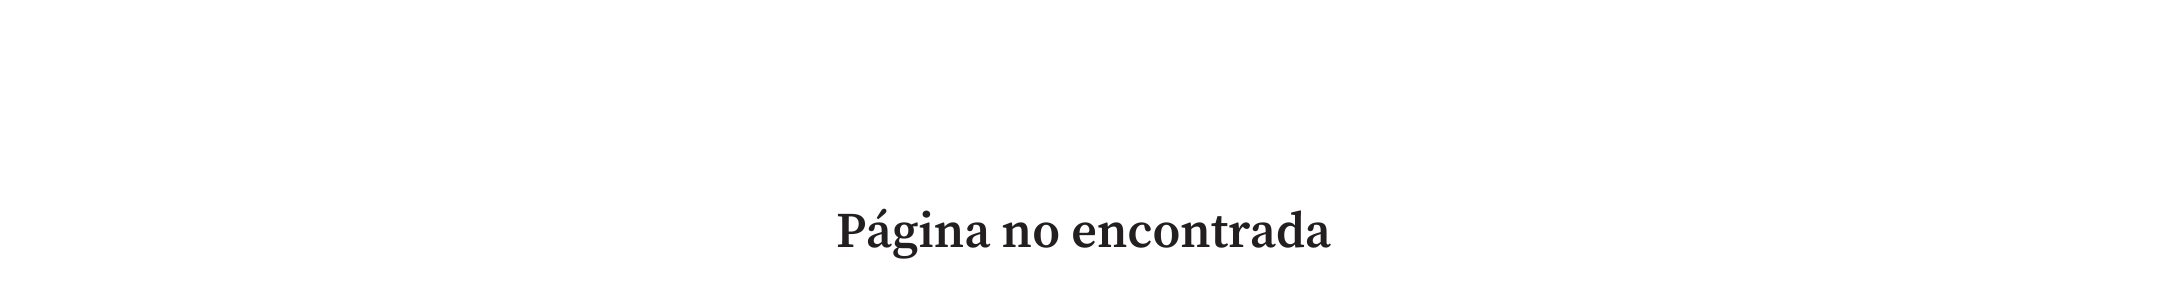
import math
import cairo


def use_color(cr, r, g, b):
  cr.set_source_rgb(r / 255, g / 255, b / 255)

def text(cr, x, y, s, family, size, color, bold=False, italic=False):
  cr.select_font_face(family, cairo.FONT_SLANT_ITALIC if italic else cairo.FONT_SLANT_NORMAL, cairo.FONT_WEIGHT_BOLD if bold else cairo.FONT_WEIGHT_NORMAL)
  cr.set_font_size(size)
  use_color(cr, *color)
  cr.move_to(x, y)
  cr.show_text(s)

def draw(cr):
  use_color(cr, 255, 255, 255)
  cr.paint()
  text(cr, 836, 247, "Página no encontrada", "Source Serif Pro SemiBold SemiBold", 50, (35, 31, 32))


surface = cairo.ImageSurface(cairo.FORMAT_RGB24, 2166, 303)
cr = cairo.Context(surface)
options = cairo.FontOptions()
options.set_hint_metrics(cairo.HINT_METRICS_OFF)
options.set_hint_style(cairo.HINT_STYLE_NONE)
cr.set_font_options(options)
cr.set_miter_limit(4)
draw(cr)
surface.write_to_png("out.png")
